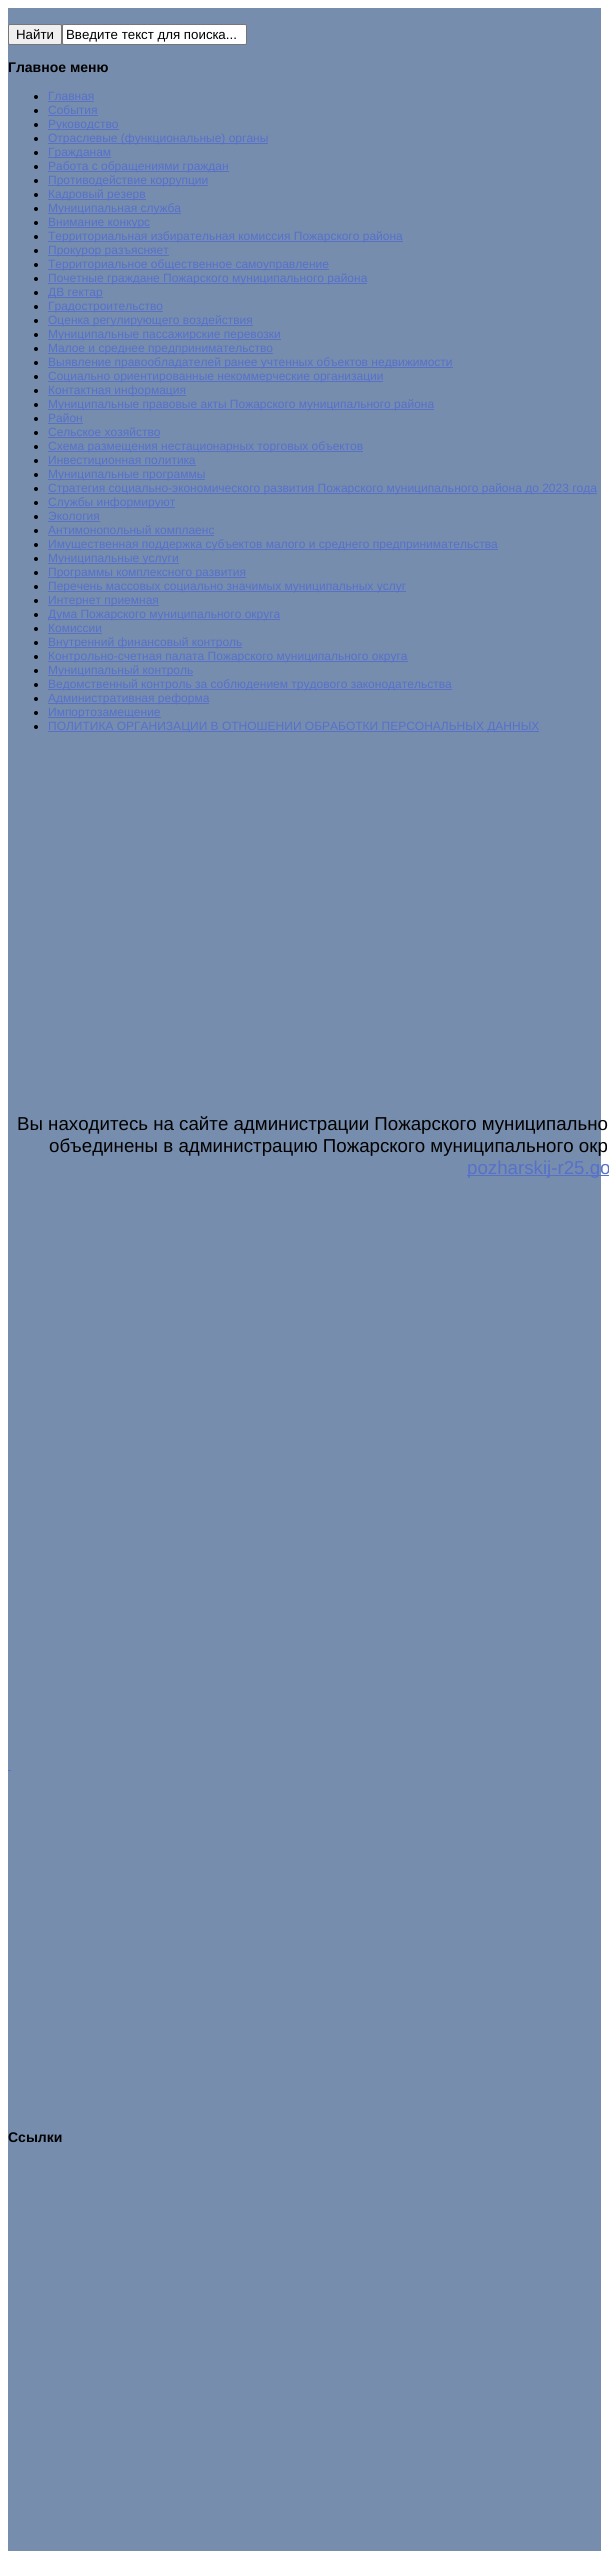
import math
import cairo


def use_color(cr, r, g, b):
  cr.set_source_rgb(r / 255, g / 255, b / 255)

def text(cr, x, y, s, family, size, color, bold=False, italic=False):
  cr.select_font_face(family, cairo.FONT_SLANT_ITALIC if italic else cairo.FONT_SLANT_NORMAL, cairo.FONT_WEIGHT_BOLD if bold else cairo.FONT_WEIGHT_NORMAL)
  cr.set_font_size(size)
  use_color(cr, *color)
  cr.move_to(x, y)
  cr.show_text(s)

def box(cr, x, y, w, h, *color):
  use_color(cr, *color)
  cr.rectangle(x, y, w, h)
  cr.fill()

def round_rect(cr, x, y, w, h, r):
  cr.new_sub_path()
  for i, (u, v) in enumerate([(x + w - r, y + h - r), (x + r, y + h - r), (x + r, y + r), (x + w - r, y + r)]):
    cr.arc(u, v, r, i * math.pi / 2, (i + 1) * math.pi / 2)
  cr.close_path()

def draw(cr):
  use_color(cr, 255, 255, 255)
  cr.paint()
  box(cr, 8, 8, 593, 2543, 118, 141, 173)
  use_color(cr, 239, 239, 239)
  round_rect(cr, 8.5, 24.5, 53, 20, 1.5)
  cr.fill_preserve()
  use_color(cr, 118, 118, 118)
  cr.set_line_width(1)
  cr.stroke()
  use_color(cr, 255, 255, 255)
  round_rect(cr, 62.5, 24.5, 184, 20, 1.5)
  cr.fill_preserve()
  use_color(cr, 118, 118, 118)
  cr.stroke()
  use_color(cr, 0, 0, 0)
  cr.arc(36, 97, 2, 0, 2 * math.pi)
  cr.fill()
  box(cr, 48, 101, 46, 1, 86, 112, 203)
  use_color(cr, 0, 0, 0)
  cr.arc(36, 111, 2, 0, 2 * math.pi)
  cr.fill()
  box(cr, 48, 115, 50, 1, 86, 112, 203)
  use_color(cr, 0, 0, 0)
  cr.arc(36, 125, 2, 0, 2 * math.pi)
  cr.fill()
  box(cr, 48, 129, 71, 1, 86, 112, 203)
  use_color(cr, 0, 0, 0)
  cr.arc(36, 139, 2, 0, 2 * math.pi)
  cr.fill()
  box(cr, 48, 143, 220, 1, 86, 112, 203)
  use_color(cr, 0, 0, 0)
  cr.arc(36, 153, 2, 0, 2 * math.pi)
  cr.fill()
  box(cr, 48, 157, 63, 1, 86, 112, 203)
  use_color(cr, 0, 0, 0)
  cr.arc(36, 167, 2, 0, 2 * math.pi)
  cr.fill()
  box(cr, 48, 171, 181, 1, 86, 112, 203)
  use_color(cr, 0, 0, 0)
  cr.arc(36, 181, 2, 0, 2 * math.pi)
  cr.fill()
  box(cr, 48, 185, 160, 1, 86, 112, 203)
  use_color(cr, 0, 0, 0)
  cr.arc(36, 195, 2, 0, 2 * math.pi)
  cr.fill()
  box(cr, 48, 199, 98, 1, 86, 112, 203)
  use_color(cr, 0, 0, 0)
  cr.arc(36, 209, 2, 0, 2 * math.pi)
  cr.fill()
  box(cr, 48, 213, 133, 1, 86, 112, 203)
  use_color(cr, 0, 0, 0)
  cr.arc(36, 223, 2, 0, 2 * math.pi)
  cr.fill()
  box(cr, 48, 227, 102, 1, 86, 112, 203)
  use_color(cr, 0, 0, 0)
  cr.arc(36, 237, 2, 0, 2 * math.pi)
  cr.fill()
  box(cr, 48, 241, 355, 1, 86, 112, 203)
  use_color(cr, 0, 0, 0)
  cr.arc(36, 251, 2, 0, 2 * math.pi)
  cr.fill()
  box(cr, 48, 255, 121, 1, 86, 112, 203)
  use_color(cr, 0, 0, 0)
  cr.arc(36, 265, 2, 0, 2 * math.pi)
  cr.fill()
  box(cr, 48, 269, 281, 1, 86, 112, 203)
  use_color(cr, 0, 0, 0)
  cr.arc(36, 279, 2, 0, 2 * math.pi)
  cr.fill()
  box(cr, 48, 283, 319, 1, 86, 112, 203)
  use_color(cr, 0, 0, 0)
  cr.arc(36, 293, 2, 0, 2 * math.pi)
  cr.fill()
  box(cr, 48, 297, 55, 1, 86, 112, 203)
  use_color(cr, 0, 0, 0)
  cr.arc(36, 307, 2, 0, 2 * math.pi)
  cr.fill()
  box(cr, 48, 311, 115, 1, 86, 112, 203)
  use_color(cr, 0, 0, 0)
  cr.arc(36, 321, 2, 0, 2 * math.pi)
  cr.fill()
  box(cr, 48, 325, 205, 1, 86, 112, 203)
  use_color(cr, 0, 0, 0)
  cr.arc(36, 335, 2, 0, 2 * math.pi)
  cr.fill()
  box(cr, 48, 339, 233, 1, 86, 112, 203)
  use_color(cr, 0, 0, 0)
  cr.arc(36, 349, 2, 0, 2 * math.pi)
  cr.fill()
  box(cr, 48, 353, 225, 1, 86, 112, 203)
  use_color(cr, 0, 0, 0)
  cr.arc(36, 363, 2, 0, 2 * math.pi)
  cr.fill()
  box(cr, 48, 367, 405, 1, 86, 112, 203)
  use_color(cr, 0, 0, 0)
  cr.arc(36, 377, 2, 0, 2 * math.pi)
  cr.fill()
  box(cr, 48, 381, 335, 1, 86, 112, 203)
  use_color(cr, 0, 0, 0)
  cr.arc(36, 391, 2, 0, 2 * math.pi)
  cr.fill()
  box(cr, 48, 395, 138, 1, 86, 112, 203)
  use_color(cr, 0, 0, 0)
  cr.arc(36, 405, 2, 0, 2 * math.pi)
  cr.fill()
  box(cr, 48, 409, 386, 1, 86, 112, 203)
  use_color(cr, 0, 0, 0)
  cr.arc(36, 419, 2, 0, 2 * math.pi)
  cr.fill()
  box(cr, 48, 423, 35, 1, 86, 112, 203)
  use_color(cr, 0, 0, 0)
  cr.arc(36, 433, 2, 0, 2 * math.pi)
  cr.fill()
  box(cr, 48, 437, 112, 1, 86, 112, 203)
  use_color(cr, 0, 0, 0)
  cr.arc(36, 447, 2, 0, 2 * math.pi)
  cr.fill()
  box(cr, 48, 451, 315, 1, 86, 112, 203)
  use_color(cr, 0, 0, 0)
  cr.arc(36, 461, 2, 0, 2 * math.pi)
  cr.fill()
  box(cr, 48, 465, 148, 1, 86, 112, 203)
  use_color(cr, 0, 0, 0)
  cr.arc(36, 475, 2, 0, 2 * math.pi)
  cr.fill()
  box(cr, 48, 479, 157, 1, 86, 112, 203)
  use_color(cr, 0, 0, 0)
  cr.arc(36, 489, 2, 0, 2 * math.pi)
  cr.fill()
  box(cr, 48, 493, 549, 1, 86, 112, 203)
  use_color(cr, 0, 0, 0)
  cr.arc(36, 503, 2, 0, 2 * math.pi)
  cr.fill()
  box(cr, 48, 507, 127, 1, 86, 112, 203)
  use_color(cr, 0, 0, 0)
  cr.arc(36, 517, 2, 0, 2 * math.pi)
  cr.fill()
  box(cr, 48, 521, 52, 1, 86, 112, 203)
  use_color(cr, 0, 0, 0)
  cr.arc(36, 531, 2, 0, 2 * math.pi)
  cr.fill()
  box(cr, 48, 535, 166, 1, 86, 112, 203)
  use_color(cr, 0, 0, 0)
  cr.arc(36, 545, 2, 0, 2 * math.pi)
  cr.fill()
  box(cr, 48, 549, 450, 1, 86, 112, 203)
  use_color(cr, 0, 0, 0)
  cr.arc(36, 559, 2, 0, 2 * math.pi)
  cr.fill()
  box(cr, 48, 563, 131, 1, 86, 112, 203)
  use_color(cr, 0, 0, 0)
  cr.arc(36, 573, 2, 0, 2 * math.pi)
  cr.fill()
  box(cr, 48, 577, 198, 1, 86, 112, 203)
  use_color(cr, 0, 0, 0)
  cr.arc(36, 587, 2, 0, 2 * math.pi)
  cr.fill()
  box(cr, 48, 591, 358, 1, 86, 112, 203)
  use_color(cr, 0, 0, 0)
  cr.arc(36, 601, 2, 0, 2 * math.pi)
  cr.fill()
  box(cr, 48, 605, 111, 1, 86, 112, 203)
  use_color(cr, 0, 0, 0)
  cr.arc(36, 615, 2, 0, 2 * math.pi)
  cr.fill()
  box(cr, 48, 619, 232, 1, 86, 112, 203)
  use_color(cr, 0, 0, 0)
  cr.arc(36, 629, 2, 0, 2 * math.pi)
  cr.fill()
  box(cr, 48, 633, 54, 1, 86, 112, 203)
  use_color(cr, 0, 0, 0)
  cr.arc(36, 643, 2, 0, 2 * math.pi)
  cr.fill()
  box(cr, 48, 647, 194, 1, 86, 112, 203)
  use_color(cr, 0, 0, 0)
  cr.arc(36, 657, 2, 0, 2 * math.pi)
  cr.fill()
  box(cr, 48, 661, 360, 1, 86, 112, 203)
  use_color(cr, 0, 0, 0)
  cr.arc(36, 671, 2, 0, 2 * math.pi)
  cr.fill()
  box(cr, 48, 675, 145, 1, 86, 112, 203)
  use_color(cr, 0, 0, 0)
  cr.arc(36, 685, 2, 0, 2 * math.pi)
  cr.fill()
  box(cr, 48, 689, 404, 1, 86, 112, 203)
  use_color(cr, 0, 0, 0)
  cr.arc(36, 699, 2, 0, 2 * math.pi)
  cr.fill()
  box(cr, 48, 703, 161, 1, 86, 112, 203)
  use_color(cr, 0, 0, 0)
  cr.arc(36, 713, 2, 0, 2 * math.pi)
  cr.fill()
  box(cr, 48, 717, 113, 1, 86, 112, 203)
  use_color(cr, 0, 0, 0)
  cr.arc(36, 727, 2, 0, 2 * math.pi)
  cr.fill()
  box(cr, 48, 731, 491, 1, 86, 112, 203)
  box(cr, 467, 1175, 142, 1, 86, 112, 203)
  box(cr, 8, 1770, 3, 1, 86, 112, 203)
  text(cr, 16, 39, "Найти", "Liberation Sans", 13.3, (0, 0, 0))
  text(cr, 66, 39, "Введите текст для поиска...", "Liberation Sans", 13.3, (0, 0, 0))
  text(cr, 8, 72, "Главное меню", "Liberation Sans", 14, (0, 0, 0), bold=True)
  text(cr, 48, 100, "Главная", "Liberation Sans", 12, (86, 112, 203))
  text(cr, 48, 114, "События", "Liberation Sans", 12, (86, 112, 203))
  text(cr, 48, 128, "Руководство", "Liberation Sans", 12, (86, 112, 203))
  text(cr, 48, 142, "Отраслевые (функциональные) органы", "Liberation Sans", 12, (86, 112, 203))
  text(cr, 48, 156, "Гражданам", "Liberation Sans", 12, (86, 112, 203))
  text(cr, 48, 170, "Работа с обращениями граждан", "Liberation Sans", 12, (86, 112, 203))
  text(cr, 48, 184, "Противодействие коррупции", "Liberation Sans", 12, (86, 112, 203))
  text(cr, 48, 198, "Кадровый резерв", "Liberation Sans", 12, (86, 112, 203))
  text(cr, 48, 212, "Муниципальная служба", "Liberation Sans", 12, (86, 112, 203))
  text(cr, 48, 226, "Внимание конкурс", "Liberation Sans", 12, (86, 112, 203))
  text(cr, 48, 240, "Территориальная избирательная комиссия Пожарского района", "Liberation Sans", 12, (86, 112, 203))
  text(cr, 48, 254, "Прокурор разъясняет", "Liberation Sans", 12, (86, 112, 203))
  text(cr, 48, 268, "Территориальное общественное самоуправление", "Liberation Sans", 12, (86, 112, 203))
  text(cr, 48, 282, "Почетные граждане Пожарского муниципального района", "Liberation Sans", 12, (86, 112, 203))
  text(cr, 48, 296, "ДВ гектар", "Liberation Sans", 12, (86, 112, 203))
  text(cr, 48, 310, "Градостроительство", "Liberation Sans", 12, (86, 112, 203))
  text(cr, 48, 324, "Оценка регулирующего воздействия", "Liberation Sans", 12, (86, 112, 203))
  text(cr, 48, 338, "Муниципальные пассажирские перевозки", "Liberation Sans", 12, (86, 112, 203))
  text(cr, 48, 352, "Малое и среднее предпринимательство", "Liberation Sans", 12, (86, 112, 203))
  text(cr, 48, 366, "Выявление правообладателей ранее учтенных объектов недвижимости", "Liberation Sans", 12, (86, 112, 203))
  text(cr, 48, 380, "Социально ориентированные некоммерческие организации", "Liberation Sans", 12, (86, 112, 203))
  text(cr, 48, 394, "Контактная информация", "Liberation Sans", 12, (86, 112, 203))
  text(cr, 48, 408, "Муниципальные правовые акты Пожарского муниципального района", "Liberation Sans", 12, (86, 112, 203))
  text(cr, 48, 422, "Район", "Liberation Sans", 12, (86, 112, 203))
  text(cr, 48, 436, "Сельское хозяйство", "Liberation Sans", 12, (86, 112, 203))
  text(cr, 48, 450, "Схема размещения нестационарных торговых объектов", "Liberation Sans", 12, (86, 112, 203))
  text(cr, 48, 464, "Инвестиционная политика", "Liberation Sans", 12, (86, 112, 203))
  text(cr, 48, 478, "Муниципальные программы", "Liberation Sans", 12, (86, 112, 203))
  text(cr, 48, 492, "Стратегия социально-экономического развития Пожарского муниципального района до 2023 года", "Liberation Sans", 12, (86, 112, 203))
  text(cr, 48, 506, "Службы информируют", "Liberation Sans", 12, (86, 112, 203))
  text(cr, 48, 520, "Экология", "Liberation Sans", 12, (86, 112, 203))
  text(cr, 48, 534, "Антимонопольный комплаенс", "Liberation Sans", 12, (86, 112, 203))
  text(cr, 48, 548, "Имущественная поддержка субъектов малого и среднего предпринимательства", "Liberation Sans", 12, (86, 112, 203))
  text(cr, 48, 562, "Муниципальные услуги", "Liberation Sans", 12, (86, 112, 203))
  text(cr, 48, 576, "Программы комплексного развития", "Liberation Sans", 12, (86, 112, 203))
  text(cr, 48, 590, "Перечень массовых социально значимых муниципальных услуг", "Liberation Sans", 12, (86, 112, 203))
  text(cr, 48, 604, "Интернет приемная", "Liberation Sans", 12, (86, 112, 203))
  text(cr, 48, 618, "Дума Пожарского муниципального округа", "Liberation Sans", 12, (86, 112, 203))
  text(cr, 48, 632, "Комиссии", "Liberation Sans", 12, (86, 112, 203))
  text(cr, 48, 646, "Внутренний финансовый контроль", "Liberation Sans", 12, (86, 112, 203))
  text(cr, 48, 660, "Контрольно-счетная палата Пожарского муниципального округа", "Liberation Sans", 12, (86, 112, 203))
  text(cr, 48, 674, "Муниципальный контроль", "Liberation Sans", 12, (86, 112, 203))
  text(cr, 48, 688, "Ведомственный контроль за соблюдением трудового законодательства", "Liberation Sans", 12, (86, 112, 203))
  text(cr, 48, 702, "Административная реформа", "Liberation Sans", 12, (86, 112, 203))
  text(cr, 48, 716, "Импортозамещение", "Liberation Sans", 12, (86, 112, 203))
  text(cr, 48, 730, "ПОЛИТИКА ОРГАНИЗАЦИИ В ОТНОШЕНИИ ОБРАБОТКИ ПЕРСОНАЛЬНЫХ ДАННЫХ", "Liberation Sans", 12, (86, 112, 203))
  text(cr, 17, 1130, "Вы находитесь на сайте администрации Пожарского муниципально", "Liberation Sans", 18.7, (0, 0, 0))
  text(cr, 49, 1152, "объединены в администрацию Пожарского муниципального окр", "Liberation Sans", 18.7, (0, 0, 0))
  text(cr, 467, 1174, "pozharskij-r25.go", "Liberation Sans", 18.7, (86, 112, 203))
  text(cr, 8, 2142, "Ссылки", "Liberation Sans", 14, (0, 0, 0), bold=True)


surface = cairo.ImageSurface(cairo.FORMAT_RGB24, 609, 2551)
cr = cairo.Context(surface)
options = cairo.FontOptions()
options.set_hint_metrics(cairo.HINT_METRICS_OFF)
options.set_hint_style(cairo.HINT_STYLE_NONE)
cr.set_font_options(options)
cr.set_miter_limit(4)
draw(cr)
surface.write_to_png("out.png")
